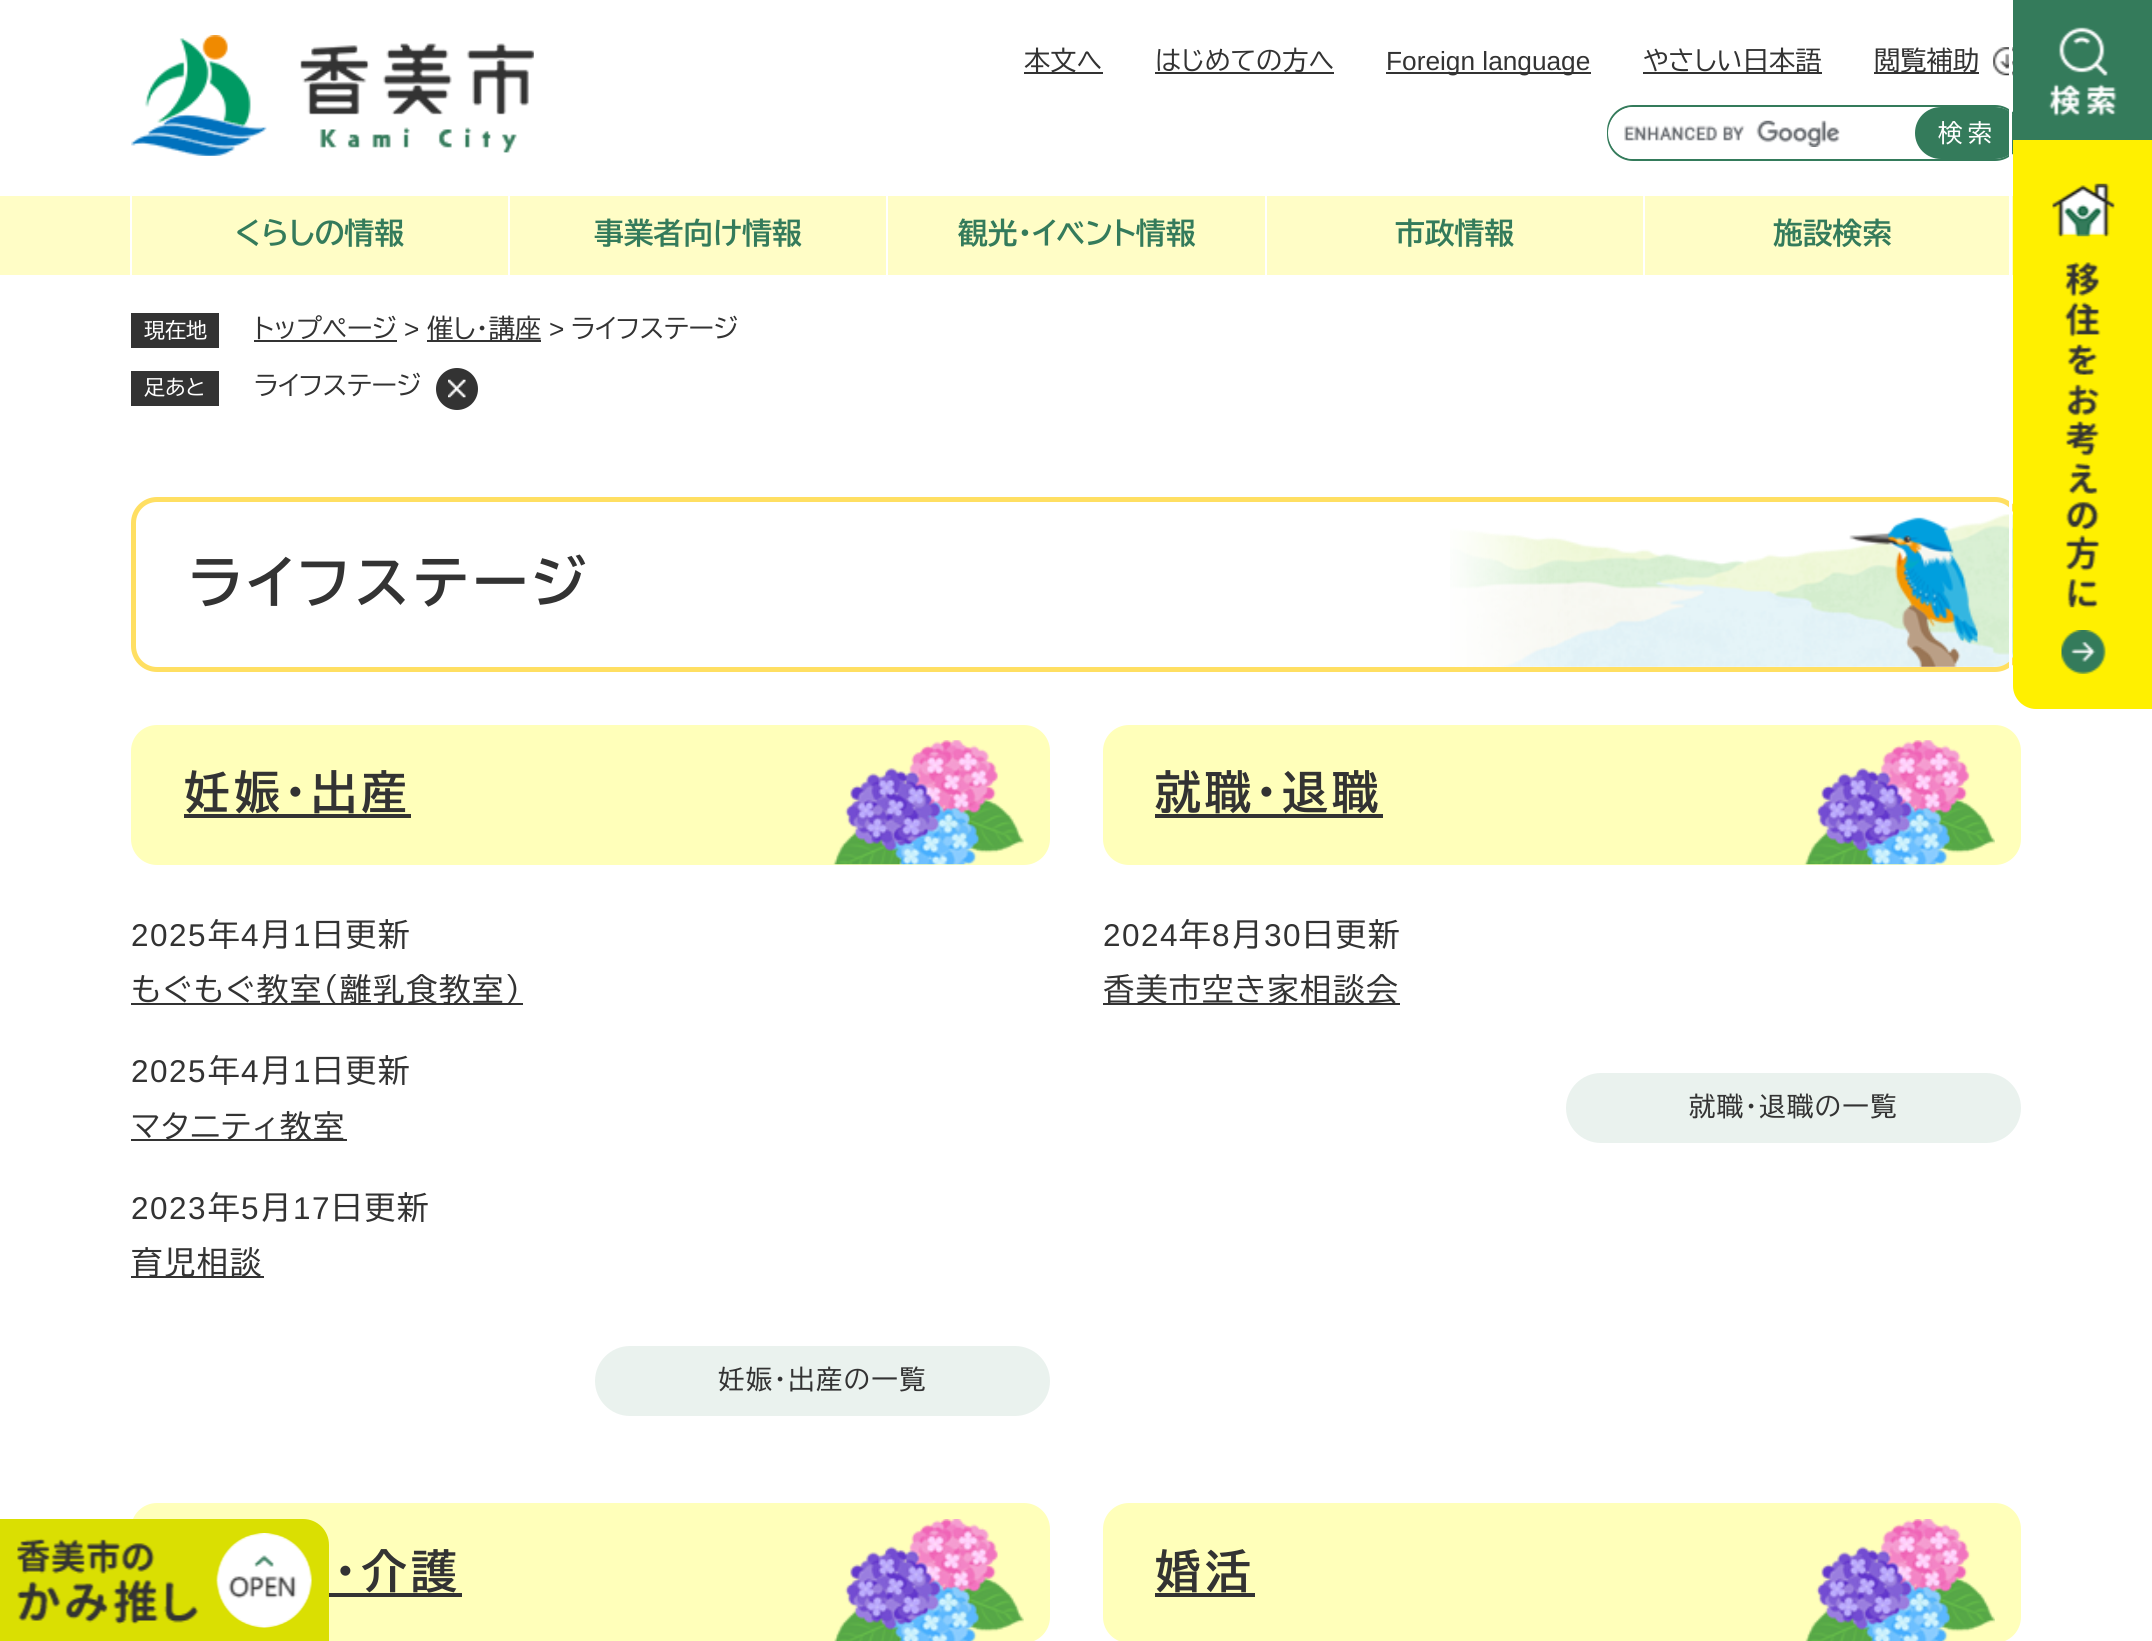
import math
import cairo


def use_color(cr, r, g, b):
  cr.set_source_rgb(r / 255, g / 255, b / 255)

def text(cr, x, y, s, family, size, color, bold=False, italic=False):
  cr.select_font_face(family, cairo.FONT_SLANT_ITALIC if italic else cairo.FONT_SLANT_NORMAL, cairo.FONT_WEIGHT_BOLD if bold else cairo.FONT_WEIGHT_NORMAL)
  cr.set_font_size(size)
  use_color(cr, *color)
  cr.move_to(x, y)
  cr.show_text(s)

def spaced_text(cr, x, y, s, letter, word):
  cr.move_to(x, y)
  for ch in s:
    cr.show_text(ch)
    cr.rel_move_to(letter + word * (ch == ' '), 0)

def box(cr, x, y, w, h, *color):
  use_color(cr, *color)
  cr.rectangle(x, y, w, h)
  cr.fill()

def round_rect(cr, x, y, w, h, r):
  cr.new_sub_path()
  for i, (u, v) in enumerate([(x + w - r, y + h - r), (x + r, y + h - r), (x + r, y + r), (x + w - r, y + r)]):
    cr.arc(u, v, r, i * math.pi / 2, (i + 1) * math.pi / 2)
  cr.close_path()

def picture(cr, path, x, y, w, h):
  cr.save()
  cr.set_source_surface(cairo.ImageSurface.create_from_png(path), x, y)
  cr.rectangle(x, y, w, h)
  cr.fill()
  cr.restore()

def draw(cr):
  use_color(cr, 255, 255, 255)
  cr.paint()
  picture(cr, "img_01.png", 131, 35, 403, 121)
  box(cr, 1024, 72, 79, 2, 51, 51, 51)
  box(cr, 1155, 72, 179, 2, 51, 51, 51)
  box(cr, 1386, 72, 205, 2, 51, 51, 51)
  box(cr, 1643, 72, 179, 2, 51, 51, 51)
  box(cr, 1874, 72, 105, 2, 51, 51, 51)
  picture(cr, "img_02.png", 1993, 47, 20, 29)
  round_rect(cr, 1608, 106, 412, 54, 25)
  use_color(cr, 52, 123, 91)
  cr.stroke()
  cr.save()
  round_rect(cr, 1608, 107, 412, 52, 25)
  cr.clip()
  use_color(cr, 255, 255, 255)
  round_rect(cr, 1608, 107, 289, 52, 26)
  cr.fill()
  cr.restore()
  picture(cr, "img_03.png", 1624, 120, 216, 27)
  cr.new_path()
  cr.move_to(1941, 107)
  cr.line_to(1995, 107)
  cr.curve_to(2009, 107, 2020, 118, 2020, 132)
  cr.line_to(2020, 134)
  cr.curve_to(2020, 148, 2009, 159, 1995, 159)
  cr.line_to(1941, 159)
  cr.curve_to(1926.5, 159, 1915, 147.5, 1915, 133)
  cr.curve_to(1915, 118.5, 1926.5, 107, 1941, 107)
  cr.close_path()
  cr.fill()
  box(cr, 0, 196, 2013, 79, 255, 253, 198)
  box(cr, 130, 196, 2, 79, 255, 255, 255)
  box(cr, 508, 196, 2, 79, 255, 255, 255)
  box(cr, 886, 196, 2, 79, 255, 255, 255)
  box(cr, 1265, 196, 2, 79, 255, 255, 255)
  box(cr, 1643, 196, 2, 79, 255, 255, 255)
  picture(cr, "img_09.png", 1450, 514, 563, 153)
  round_rect(cr, 133.5, 499.5, 1885, 170, 23.5)
  use_color(cr, 255, 223, 98)
  cr.set_line_width(5)
  cr.stroke()
  use_color(cr, 255, 255, 255)
  cr.set_fill_rule(cairo.FILL_RULE_EVEN_ODD)
  cr.new_path()
  cr.move_to(2009, 0)
  cr.line_to(2152, 0)
  cr.line_to(2152, 712)
  cr.line_to(2035, 712)
  cr.curve_to(2021, 712, 2009, 700, 2009, 686)
  cr.close_path()
  cr.move_to(2012, 0)
  cr.line_to(2152, 0)
  cr.line_to(2152, 709)
  cr.line_to(2035, 709)
  cr.curve_to(2023, 709, 2012, 699, 2012, 686)
  cr.close_path()
  cr.fill()
  box(cr, 2013, 0, 139, 140, 52, 123, 91)
  picture(cr, "img_04.png", 2048, 27, 69, 89)
  use_color(cr, 255, 240, 0)
  cr.new_path()
  cr.move_to(2013, 140)
  cr.line_to(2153, 140)
  cr.line_to(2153, 709)
  cr.line_to(2036, 709)
  cr.curve_to(2023.5, 709, 2013, 698.5, 2013, 686)
  cr.close_path()
  cr.fill()
  picture(cr, "img_05.png", 2052, 183, 63, 54)
  picture(cr, "img_06.png", 2064, 262, 37, 346)
  picture(cr, "img_07.png", 2061, 630, 45, 44)
  box(cr, 131, 313, 88, 35, 51, 51, 51)
  box(cr, 254, 340, 143, 2, 51, 51, 51)
  box(cr, 427, 340, 114, 2, 51, 51, 51)
  box(cr, 131, 371, 88, 35, 51, 51, 51)
  cr.arc(457, 389, 21, 0, 2 * math.pi)
  cr.fill()
  picture(cr, "img_08.png", 448, 379, 18, 19)
  use_color(cr, 255, 255, 186)
  round_rect(cr, 131, 725, 919, 140, 26)
  cr.fill()
  picture(cr, "img_10.png", 833, 740, 191, 125)
  box(cr, 184, 814, 227, 4, 51, 51, 51)
  box(cr, 131, 1003, 392, 2, 51, 51, 51)
  box(cr, 131, 1139, 216, 2, 51, 51, 51)
  box(cr, 131, 1276, 133, 2, 51, 51, 51)
  use_color(cr, 234, 242, 238)
  round_rect(cr, 595, 1346, 455, 70, 35)
  cr.fill()
  use_color(cr, 255, 255, 186)
  round_rect(cr, 1103, 725, 918, 140, 26)
  cr.fill()
  picture(cr, "img_11.png", 1804, 740, 191, 125)
  box(cr, 1155, 814, 228, 4, 51, 51, 51)
  box(cr, 1103, 1003, 297, 2, 51, 51, 51)
  use_color(cr, 234, 242, 238)
  round_rect(cr, 1566, 1073, 455, 70, 35)
  cr.fill()
  use_color(cr, 255, 255, 186)
  round_rect(cr, 131, 1503, 919, 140, 26)
  cr.fill()
  picture(cr, "img_12.png", 834, 1519, 190, 122)
  box(cr, 329, 1593, 133, 4, 51, 51, 51)
  use_color(cr, 255, 255, 186)
  round_rect(cr, 1103, 1503, 918, 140, 26)
  cr.fill()
  picture(cr, "img_13.png", 1805, 1519, 190, 122)
  box(cr, 1155, 1593, 100, 4, 51, 51, 51)
  use_color(cr, 218, 223, 2)
  cr.new_path()
  cr.move_to(0, 1519)
  cr.line_to(303, 1519)
  cr.curve_to(317.5, 1519, 329, 1530.5, 329, 1545)
  cr.line_to(329, 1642)
  cr.line_to(0, 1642)
  cr.close_path()
  cr.fill()
  picture(cr, "img_14.png", 17, 1538, 182, 86)
  picture(cr, "img_15.png", 216, 1533, 96, 95)
  text(cr, 1024, 70, "本文へ", "BIZ UDPGothic", 26.25, (51, 51, 51))
  text(cr, 1155, 70, "はじめての方へ", "BIZ UDPGothic", 26.25, (51, 51, 51))
  text(cr, 1386, 70, "Foreign language", "Liberation Sans", 26.25, (51, 51, 51))
  text(cr, 1643, 70, "やさしい日本語", "BIZ UDPGothic", 26.25, (51, 51, 51))
  text(cr, 1874, 70, "閲覧補助", "BIZ UDPGothic", 26.25, (51, 51, 51))
  cr.set_font_size(24.5)
  use_color(cr, 255, 255, 255)
  spaced_text(cr, 1938, 142, "検索", 5, 0)
  text(cr, 235, 244, "くらしの情報", "BIZ UDPGothic", 29.75, (52, 123, 91), bold=True)
  text(cr, 594, 244, "事業者向け情報", "BIZ UDPGothic", 29.75, (52, 123, 91), bold=True)
  text(cr, 958, 244, "観光・イベント情報", "BIZ UDPGothic", 29.75, (52, 123, 91), bold=True)
  text(cr, 1395, 244, "市政情報", "BIZ UDPGothic", 29.75, (52, 123, 91), bold=True)
  text(cr, 1773, 244, "施設検索", "BIZ UDPGothic", 29.75, (52, 123, 91), bold=True)
  text(cr, 144, 338, "現在地", "BIZ UDPGothic", 21, (255, 255, 255))
  text(cr, 254, 338, "トップページ", "BIZ UDPGothic", 26.25, (51, 51, 51))
  text(cr, 404, 338, ">", "Liberation Sans", 26.25, (51, 51, 51))
  text(cr, 427, 338, "催し・講座", "BIZ UDPGothic", 26.25, (51, 51, 51))
  text(cr, 549, 338, ">", "Liberation Sans", 26.25, (51, 51, 51))
  text(cr, 571, 338, "ライフステージ", "BIZ UDPGothic", 26.25, (51, 51, 51))
  text(cr, 144, 395, "足あと", "BIZ UDPGothic", 21, (255, 255, 255))
  text(cr, 254, 395, "ライフステージ", "BIZ UDPGothic", 26.25, (51, 51, 51))
  cr.select_font_face("BIZ UDPGothic", cairo.FONT_SLANT_NORMAL, cairo.FONT_WEIGHT_BOLD)
  cr.set_font_size(56)
  spaced_text(cr, 189, 603, "ライフステージ", 5.5, 0)
  cr.set_font_size(45.5)
  spaced_text(cr, 184, 809, "妊娠・出産", 4.5, 0)
  cr.select_font_face("Liberation Sans")
  cr.set_font_size(31.5)
  spaced_text(cr, 131, 946, "2025", 1.5, 0)
  cr.select_font_face("BIZ UDPGothic")
  spaced_text(cr, 208, 946, "年", 1.5, 0)
  cr.select_font_face("Liberation Sans")
  spaced_text(cr, 241, 946, "4", 1.5, 0)
  cr.select_font_face("BIZ UDPGothic")
  spaced_text(cr, 260, 946, "月", 1.5, 0)
  cr.select_font_face("Liberation Sans")
  spaced_text(cr, 293, 946, "1", 1.5, 0)
  cr.select_font_face("BIZ UDPGothic")
  spaced_text(cr, 312, 946, "日更新", 1.5, 0)
  spaced_text(cr, 131, 1001, "もぐもぐ教室（離乳食教室）", 1.5, 0)
  cr.select_font_face("Liberation Sans")
  spaced_text(cr, 131, 1082, "2025", 1.5, 0)
  cr.select_font_face("BIZ UDPGothic")
  spaced_text(cr, 208, 1082, "年", 1.5, 0)
  cr.select_font_face("Liberation Sans")
  spaced_text(cr, 241, 1082, "4", 1.5, 0)
  cr.select_font_face("BIZ UDPGothic")
  spaced_text(cr, 260, 1082, "月", 1.5, 0)
  cr.select_font_face("Liberation Sans")
  spaced_text(cr, 293, 1082, "1", 1.5, 0)
  cr.select_font_face("BIZ UDPGothic")
  spaced_text(cr, 312, 1082, "日更新", 1.5, 0)
  spaced_text(cr, 131, 1138, "マタニティ教室", 1.5, 0)
  cr.select_font_face("Liberation Sans")
  spaced_text(cr, 131, 1219, "2023", 1.5, 0)
  cr.select_font_face("BIZ UDPGothic")
  spaced_text(cr, 208, 1219, "年", 1.5, 0)
  cr.select_font_face("Liberation Sans")
  spaced_text(cr, 241, 1219, "5", 1.5, 0)
  cr.select_font_face("BIZ UDPGothic")
  spaced_text(cr, 260, 1219, "月", 1.5, 0)
  cr.select_font_face("Liberation Sans")
  spaced_text(cr, 293, 1219, "17", 1.5, 0)
  cr.select_font_face("BIZ UDPGothic")
  spaced_text(cr, 331, 1219, "日更新", 1.5, 0)
  spaced_text(cr, 131, 1274, "育児相談", 1.5, 0)
  cr.set_font_size(26.25)
  spaced_text(cr, 718, 1389, "妊娠・出産の一覧", 1.5, 0)
  cr.select_font_face("BIZ UDPGothic", cairo.FONT_SLANT_NORMAL, cairo.FONT_WEIGHT_BOLD)
  cr.set_font_size(45.5)
  spaced_text(cr, 1155, 809, "就職・退職", 4.5, 0)
  cr.select_font_face("Liberation Sans")
  cr.set_font_size(31.5)
  spaced_text(cr, 1103, 946, "2024", 1.5, 0)
  cr.select_font_face("BIZ UDPGothic")
  spaced_text(cr, 1179, 946, "年", 1.5, 0)
  cr.select_font_face("Liberation Sans")
  spaced_text(cr, 1212, 946, "8", 1.5, 0)
  cr.select_font_face("BIZ UDPGothic")
  spaced_text(cr, 1231, 946, "月", 1.5, 0)
  cr.select_font_face("Liberation Sans")
  spaced_text(cr, 1264, 946, "30", 1.5, 0)
  cr.select_font_face("BIZ UDPGothic")
  spaced_text(cr, 1302, 946, "日更新", 1.5, 0)
  spaced_text(cr, 1103, 1001, "香美市空き家相談会", 1.5, 0)
  cr.set_font_size(26.25)
  spaced_text(cr, 1689, 1116, "就職・退職の一覧", 1.5, 0)
  cr.select_font_face("BIZ UDPGothic", cairo.FONT_SLANT_NORMAL, cairo.FONT_WEIGHT_BOLD)
  cr.set_font_size(45.5)
  spaced_text(cr, 334, 1588, "・介護", 4.5, 0)
  spaced_text(cr, 1155, 1588, "婚活", 4.5, 0)


surface = cairo.ImageSurface(cairo.FORMAT_RGB24, 2152, 1641)
cr = cairo.Context(surface)
options = cairo.FontOptions()
options.set_hint_metrics(cairo.HINT_METRICS_OFF)
options.set_hint_style(cairo.HINT_STYLE_NONE)
cr.set_font_options(options)
cr.set_miter_limit(4)
draw(cr)
surface.write_to_png("out.png")
